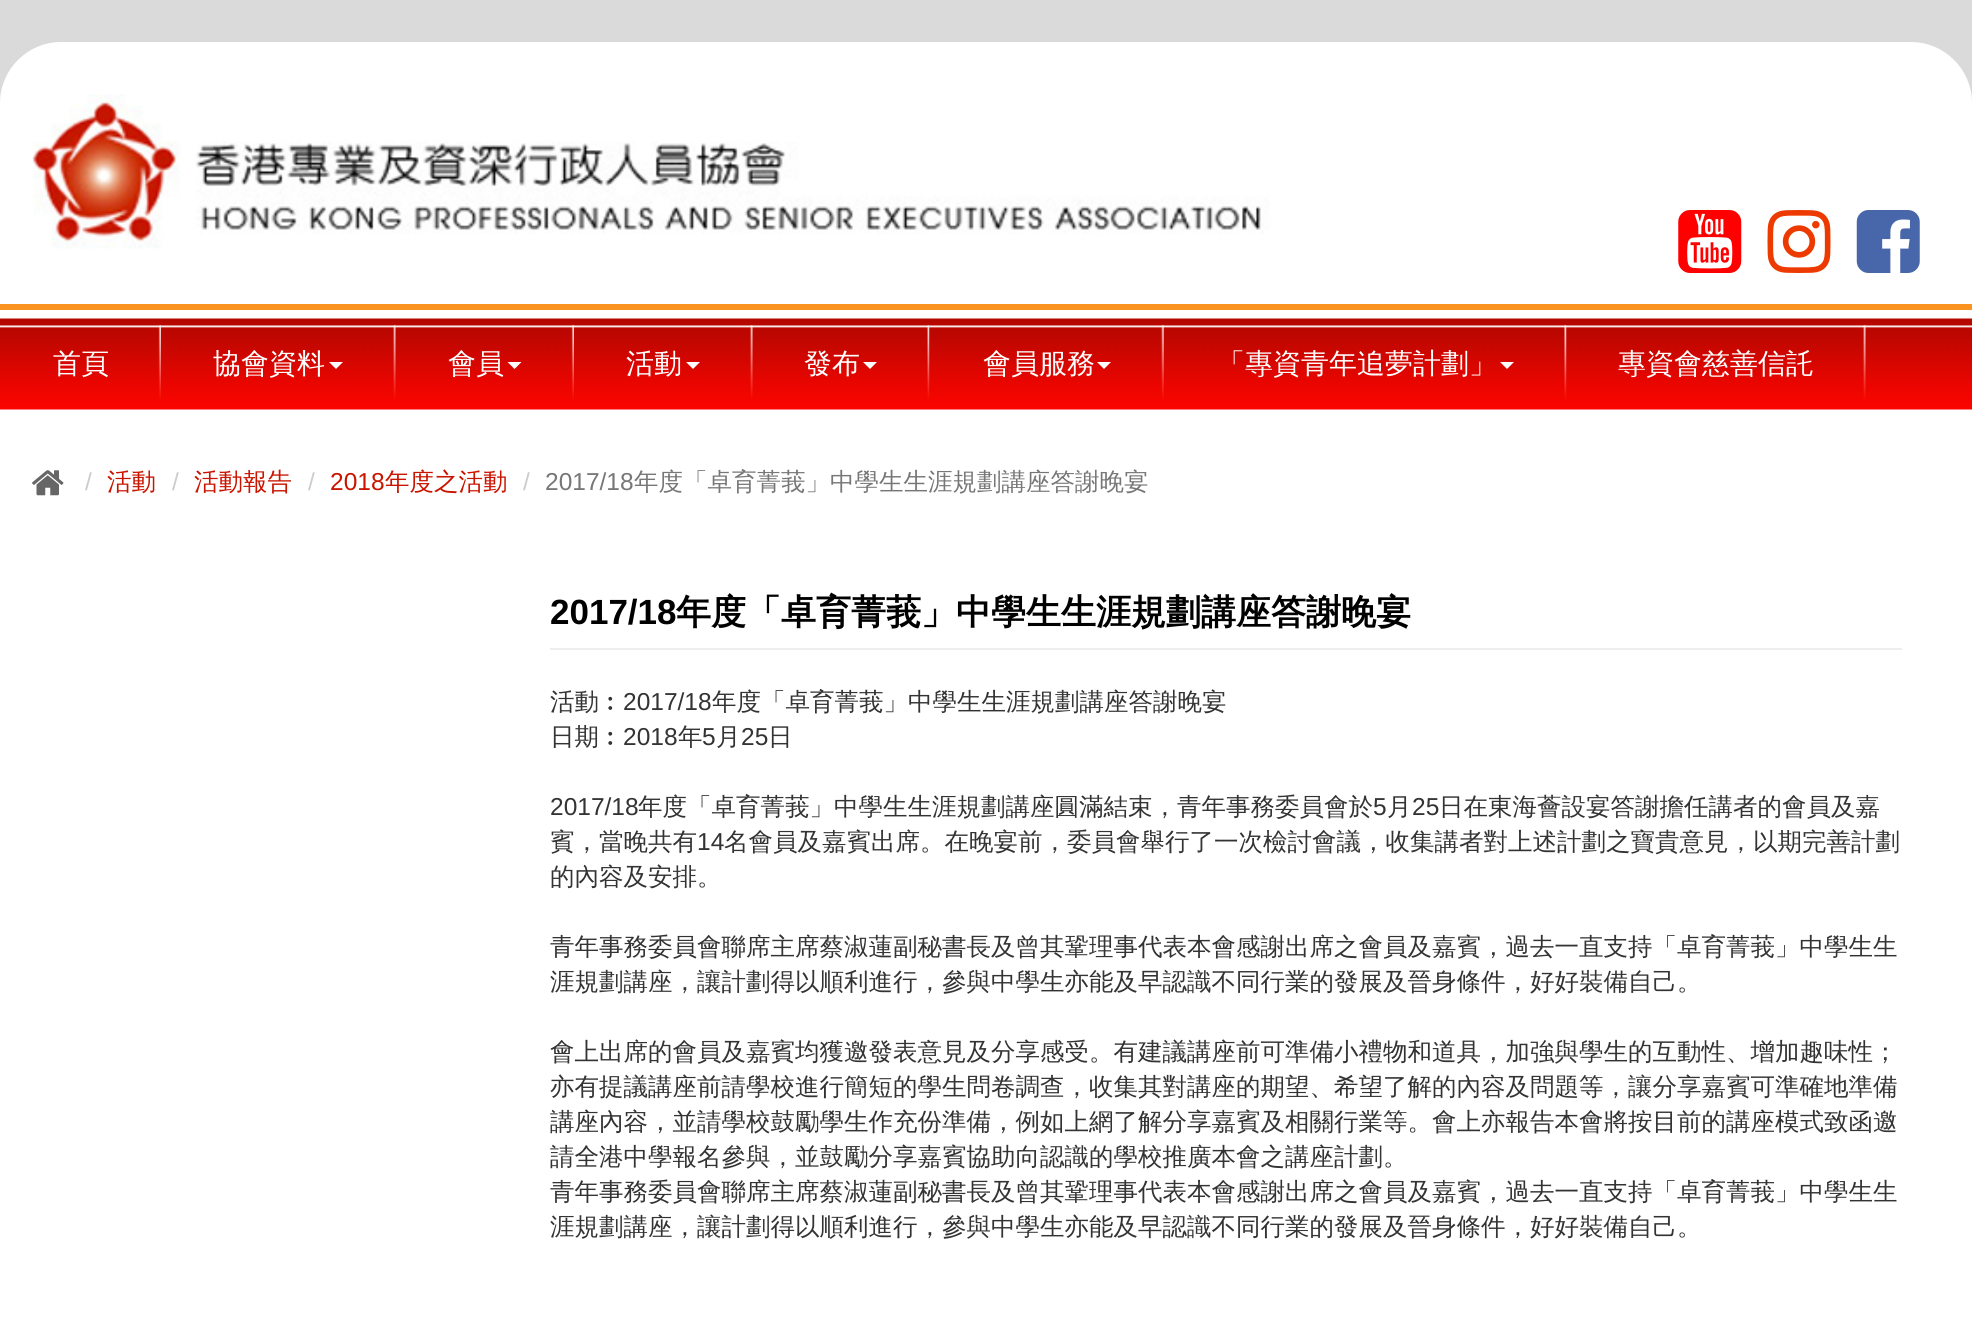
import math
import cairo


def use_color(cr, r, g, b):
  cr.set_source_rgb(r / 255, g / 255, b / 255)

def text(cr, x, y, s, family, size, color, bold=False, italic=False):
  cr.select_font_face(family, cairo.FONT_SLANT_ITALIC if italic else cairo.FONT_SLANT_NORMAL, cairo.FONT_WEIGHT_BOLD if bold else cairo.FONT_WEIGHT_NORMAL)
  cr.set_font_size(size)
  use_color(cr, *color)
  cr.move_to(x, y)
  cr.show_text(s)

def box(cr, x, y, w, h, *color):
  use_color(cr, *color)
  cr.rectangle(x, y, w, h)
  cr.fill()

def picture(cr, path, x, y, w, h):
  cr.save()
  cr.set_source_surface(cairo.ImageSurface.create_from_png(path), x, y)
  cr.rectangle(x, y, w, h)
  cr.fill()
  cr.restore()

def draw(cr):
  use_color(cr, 218, 218, 218)
  cr.paint()
  use_color(cr, 255, 255, 255)
  cr.new_path()
  cr.move_to(61, 42)
  cr.line_to(1911, 42)
  cr.curve_to(1944.5, 42, 1972, 69.5, 1972, 103)
  cr.line_to(1972, 410)
  cr.line_to(0, 410)
  cr.line_to(0, 103)
  cr.curve_to(0, 69.5, 27.5, 42, 61, 42)
  cr.close_path()
  cr.fill()
  box(cr, 0, 304, 1972, 6, 251, 147, 32)
  picture(cr, "img_01.png", 32, 94, 1238, 155)
  picture(cr, "img_02.png", 1678, 210, 64, 63)
  picture(cr, "img_03.png", 1767, 210, 64, 63)
  picture(cr, "img_04.png", 1856, 210, 64, 63)
  picture(cr, "img_05.png", 0, 318, 1972, 92)
  picture(cr, "img_06.png", 158, 325, 3, 75)
  picture(cr, "img_07.png", 393, 325, 3, 74)
  use_color(cr, 255, 255, 255)
  cr.new_path()
  cr.move_to(329, 362)
  cr.line_to(343, 362)
  cr.line_to(336, 369)
  cr.close_path()
  cr.fill()
  picture(cr, "img_08.png", 571, 325, 3, 75)
  cr.new_path()
  cr.move_to(507.5, 362)
  cr.line_to(521.5, 362)
  cr.line_to(514.5, 369)
  cr.close_path()
  cr.fill()
  picture(cr, "img_09.png", 750, 325, 3, 74)
  cr.new_path()
  cr.move_to(686, 362)
  cr.line_to(700, 362)
  cr.line_to(693, 369)
  cr.close_path()
  cr.fill()
  picture(cr, "img_10.png", 927, 325, 3, 75)
  cr.new_path()
  cr.move_to(863, 362)
  cr.line_to(877, 362)
  cr.line_to(870, 369)
  cr.close_path()
  cr.fill()
  picture(cr, "img_11.png", 1161, 325, 3, 74)
  cr.new_path()
  cr.move_to(1097, 362)
  cr.line_to(1111, 362)
  cr.line_to(1104, 369)
  cr.close_path()
  cr.fill()
  picture(cr, "img_12.png", 1564, 325, 3, 75)
  cr.new_path()
  cr.move_to(1500, 362)
  cr.line_to(1514, 362)
  cr.line_to(1507, 369)
  cr.close_path()
  cr.fill()
  picture(cr, "img_07.png", 1863, 325, 3, 74)
  box(cr, 0, 410, 1972, 917, 255, 255, 255)
  picture(cr, "img_13.png", 32, 470, 32, 26)
  box(cr, 550, 648, 1352, 2, 238, 238, 238)
  text(cr, 53, 373, "首頁", "WenQuanYi Zen Hei Medium", 28, (255, 255, 255))
  text(cr, 213, 373, "協會資料", "WenQuanYi Zen Hei Medium", 28, (255, 255, 255))
  text(cr, 448, 373, "會員", "WenQuanYi Zen Hei Medium", 28, (255, 255, 255))
  text(cr, 626, 373, "活動", "WenQuanYi Zen Hei Medium", 28, (255, 255, 255))
  text(cr, 804, 373, "發布", "WenQuanYi Zen Hei Medium", 28, (255, 255, 255))
  text(cr, 983, 373, "會員服務", "WenQuanYi Zen Hei Medium", 28, (255, 255, 255))
  text(cr, 1217, 373, "「專資青年追夢計劃」", "WenQuanYi Zen Hei Medium", 28, (255, 255, 255))
  text(cr, 1618, 373, "專資會慈善信託", "WenQuanYi Zen Hei Medium", 28, (255, 255, 255))
  text(cr, 85, 490, "/", "Liberation Sans", 24.5, (204, 204, 204))
  text(cr, 107, 490, "活動", "WenQuanYi Zen Hei Medium", 24.5, (201, 20, 0))
  text(cr, 172, 490, "/", "Liberation Sans", 24.5, (204, 204, 204))
  text(cr, 194, 490, "活動報告", "WenQuanYi Zen Hei Medium", 24.5, (201, 20, 0))
  text(cr, 308, 490, "/", "Liberation Sans", 24.5, (204, 204, 204))
  text(cr, 330, 490, "2018", "Liberation Sans", 24.5, (201, 20, 0))
  text(cr, 385, 490, "年度之活動", "WenQuanYi Zen Hei Medium", 24.5, (201, 20, 0))
  text(cr, 523, 490, "/", "Liberation Sans", 24.5, (204, 204, 204))
  text(cr, 545, 490, "2017/18", "Liberation Sans", 24.5, (119, 119, 119))
  text(cr, 634, 490, "年度「卓育菁莪」中學生生涯規劃講座答謝晚宴", "WenQuanYi Zen Hei Medium", 24.5, (119, 119, 119))
  text(cr, 550, 624, "2017/18", "Liberation Sans", 35, (0, 0, 0), bold=True)
  text(cr, 676, 624, "年度「卓育菁莪」中學生生涯規劃講座答謝晚宴", "WenQuanYi Zen Hei", 35, (0, 0, 0), bold=True)
  text(cr, 550, 710, "活動︰", "WenQuanYi Zen Hei Medium", 24.5, (51, 51, 51))
  text(cr, 623, 710, "2017/18", "Liberation Sans", 24.5, (51, 51, 51))
  text(cr, 712, 710, "年度「卓育菁莪」中學生生涯規劃講座答謝晚宴", "WenQuanYi Zen Hei Medium", 24.5, (51, 51, 51))
  text(cr, 550, 745, "日期︰", "WenQuanYi Zen Hei Medium", 24.5, (51, 51, 51))
  text(cr, 623, 745, "2018", "Liberation Sans", 24.5, (51, 51, 51))
  text(cr, 678, 745, "年", "WenQuanYi Zen Hei Medium", 24.5, (51, 51, 51))
  text(cr, 702, 745, "5", "Liberation Sans", 24.5, (51, 51, 51))
  text(cr, 716, 745, "月", "WenQuanYi Zen Hei Medium", 24.5, (51, 51, 51))
  text(cr, 741, 745, "25", "Liberation Sans", 24.5, (51, 51, 51))
  text(cr, 768, 745, "日", "WenQuanYi Zen Hei Medium", 24.5, (51, 51, 51))
  text(cr, 550, 815, "2017/18", "Liberation Sans", 24.5, (51, 51, 51))
  text(cr, 638, 815, "年度「卓育菁莪」中學生生涯規劃講座圓滿結束，青年事務委員會於", "WenQuanYi Zen Hei Medium", 24.5, (51, 51, 51))
  text(cr, 1373, 815, "5", "Liberation Sans", 24.5, (51, 51, 51))
  text(cr, 1387, 815, "月", "WenQuanYi Zen Hei Medium", 24.5, (51, 51, 51))
  text(cr, 1412, 815, "25", "Liberation Sans", 24.5, (51, 51, 51))
  text(cr, 1439, 815, "日在東海薈設宴答謝擔任講者的會員及嘉", "WenQuanYi Zen Hei Medium", 24.5, (51, 51, 51))
  text(cr, 550, 850, "賓，當晚共有", "WenQuanYi Zen Hei Medium", 24.5, (51, 51, 51))
  text(cr, 697, 850, "14", "Liberation Sans", 24.5, (51, 51, 51))
  text(cr, 724, 850, "名會員及嘉賓出席。在晚宴前，委員會舉行了一次檢討會議，收集講者對上述計劃之寶貴意見，以期完善計劃", "WenQuanYi Zen Hei Medium", 24.5, (51, 51, 51))
  text(cr, 550, 885, "的內容及安排。", "WenQuanYi Zen Hei Medium", 24.5, (51, 51, 51))
  text(cr, 550, 955, "青年事務委員會聯席主席蔡淑蓮副秘書長及曾其鞏理事代表本會感謝出席之會員及嘉賓，過去一直支持「卓育菁莪」中學生生", "WenQuanYi Zen Hei Medium", 24.5, (51, 51, 51))
  text(cr, 550, 990, "涯規劃講座，讓計劃得以順利進行，參與中學生亦能及早認識不同行業的發展及晉身條件，好好裝備自己。", "WenQuanYi Zen Hei Medium", 24.5, (51, 51, 51))
  text(cr, 550, 1060, "會上出席的會員及嘉賓均獲邀發表意見及分享感受。有建議講座前可準備小禮物和道具，加強與學生的互動性、增加趣味性；", "WenQuanYi Zen Hei Medium", 24.5, (51, 51, 51))
  text(cr, 550, 1095, "亦有提議講座前請學校進行簡短的學生問卷調查，收集其對講座的期望、希望了解的內容及問題等，讓分享嘉賓可準確地準備", "WenQuanYi Zen Hei Medium", 24.5, (51, 51, 51))
  text(cr, 550, 1130, "講座內容，並請學校鼓勵學生作充份準備，例如上網了解分享嘉賓及相關行業等。會上亦報告本會將按目前的講座模式致函邀", "WenQuanYi Zen Hei Medium", 24.5, (51, 51, 51))
  text(cr, 550, 1165, "請全港中學報名參與，並鼓勵分享嘉賓協助向認識的學校推廣本會之講座計劃。", "WenQuanYi Zen Hei Medium", 24.5, (51, 51, 51))
  text(cr, 550, 1200, "青年事務委員會聯席主席蔡淑蓮副秘書長及曾其鞏理事代表本會感謝出席之會員及嘉賓，過去一直支持「卓育菁莪」中學生生", "WenQuanYi Zen Hei Medium", 24.5, (51, 51, 51))
  text(cr, 550, 1235, "涯規劃講座，讓計劃得以順利進行，參與中學生亦能及早認識不同行業的發展及晉身條件，好好裝備自己。", "WenQuanYi Zen Hei Medium", 24.5, (51, 51, 51))


surface = cairo.ImageSurface(cairo.FORMAT_RGB24, 1972, 1327)
cr = cairo.Context(surface)
options = cairo.FontOptions()
options.set_hint_metrics(cairo.HINT_METRICS_OFF)
options.set_hint_style(cairo.HINT_STYLE_NONE)
cr.set_font_options(options)
cr.set_miter_limit(4)
draw(cr)
surface.write_to_png("out.png")
